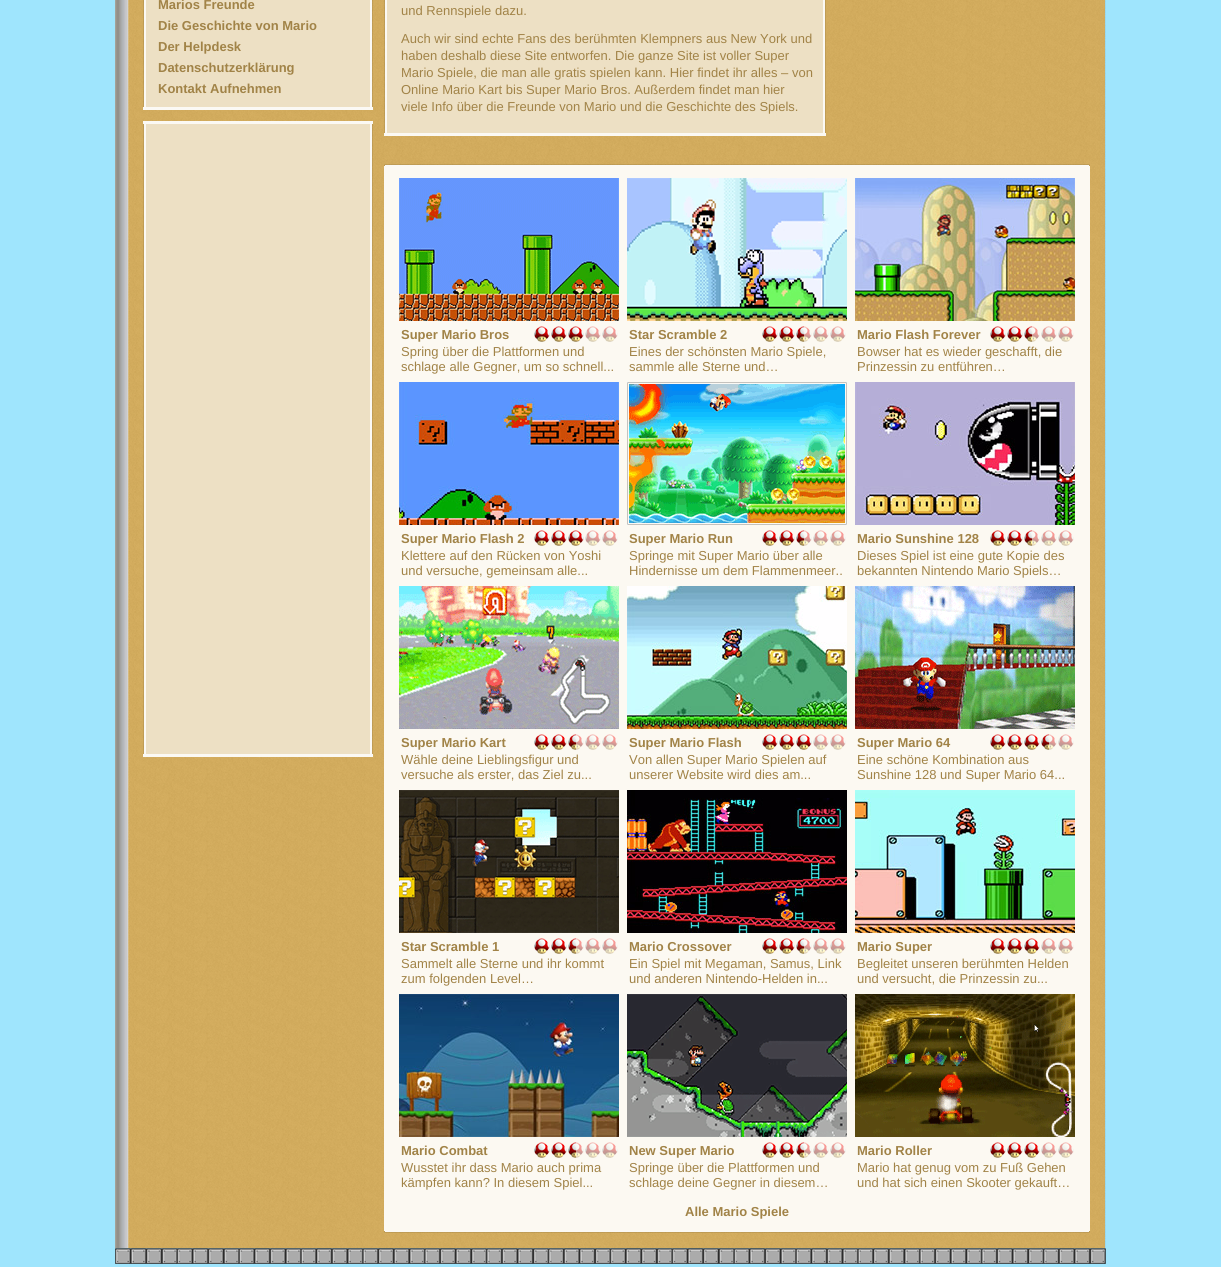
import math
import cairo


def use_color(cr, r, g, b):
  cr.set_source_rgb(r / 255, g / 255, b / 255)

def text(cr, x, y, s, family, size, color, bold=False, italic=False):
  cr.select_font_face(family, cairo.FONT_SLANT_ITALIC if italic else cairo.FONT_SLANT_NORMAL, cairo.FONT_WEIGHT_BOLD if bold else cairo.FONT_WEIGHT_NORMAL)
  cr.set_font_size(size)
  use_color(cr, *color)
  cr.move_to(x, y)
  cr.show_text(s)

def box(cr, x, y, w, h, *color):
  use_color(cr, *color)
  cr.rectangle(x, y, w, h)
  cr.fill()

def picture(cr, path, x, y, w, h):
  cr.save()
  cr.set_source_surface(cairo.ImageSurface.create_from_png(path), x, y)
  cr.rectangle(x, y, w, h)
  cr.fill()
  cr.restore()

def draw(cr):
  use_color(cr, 159, 229, 253)
  cr.paint()
  picture(cr, "img_01.png", 115, 0, 991, 1248)
  picture(cr, "img_02.png", 143, 0, 230, 107)
  box(cr, 143, 107, 230, 3, 251, 249, 244)
  box(cr, 143, 121, 230, 3, 251, 249, 244)
  picture(cr, "img_03.png", 143, 124, 230, 630)
  box(cr, 143, 754, 230, 3, 251, 249, 244)
  picture(cr, "img_04.png", 384, 0, 442, 133)
  box(cr, 384, 133, 442, 3, 251, 249, 244)
  picture(cr, "img_05.png", 384, 164, 706, 2)
  box(cr, 384, 166, 706, 1065, 252, 249, 242)
  picture(cr, "img_06.png", 399, 178, 220, 143)
  picture(cr, "img_07.png", 534, 326, 84, 16)
  picture(cr, "img_08.png", 627, 178, 220, 143)
  picture(cr, "img_09.png", 762, 326, 84, 16)
  picture(cr, "img_10.png", 855, 178, 220, 143)
  picture(cr, "img_09.png", 990, 326, 84, 16)
  picture(cr, "img_11.png", 399, 382, 220, 143)
  picture(cr, "img_07.png", 534, 530, 84, 16)
  picture(cr, "img_12.png", 627, 382, 220, 143)
  picture(cr, "img_09.png", 762, 530, 84, 16)
  picture(cr, "img_13.png", 855, 382, 220, 143)
  picture(cr, "img_09.png", 990, 530, 84, 16)
  picture(cr, "img_14.png", 399, 586, 220, 143)
  picture(cr, "img_09.png", 534, 734, 84, 16)
  picture(cr, "img_15.png", 627, 586, 220, 143)
  picture(cr, "img_07.png", 762, 734, 84, 16)
  picture(cr, "img_16.png", 855, 586, 220, 143)
  picture(cr, "img_17.png", 990, 734, 84, 16)
  picture(cr, "img_18.png", 399, 790, 220, 143)
  picture(cr, "img_09.png", 534, 938, 84, 16)
  picture(cr, "img_19.png", 627, 790, 220, 143)
  picture(cr, "img_09.png", 762, 938, 84, 16)
  picture(cr, "img_20.png", 855, 790, 220, 143)
  picture(cr, "img_07.png", 990, 938, 84, 16)
  picture(cr, "img_21.png", 399, 994, 220, 143)
  picture(cr, "img_09.png", 534, 1142, 84, 16)
  picture(cr, "img_22.png", 627, 994, 220, 143)
  picture(cr, "img_09.png", 762, 1142, 84, 16)
  picture(cr, "img_23.png", 855, 994, 220, 143)
  picture(cr, "img_07.png", 990, 1142, 84, 16)
  picture(cr, "img_24.png", 384, 1231, 706, 2)
  picture(cr, "img_25.png", 115, 1248, 991, 16)
  text(cr, 158, 9, "Marios Freunde", "Liberation Sans", 13, (161, 131, 71), bold=True)
  text(cr, 158, 30, "Die Geschichte von Mario", "Liberation Sans", 13, (161, 131, 71), bold=True)
  text(cr, 158, 51, "Der Helpdesk", "Liberation Sans", 13, (161, 131, 71), bold=True)
  text(cr, 158, 72, "Datenschutzerklärung", "Liberation Sans", 13, (161, 131, 71), bold=True)
  text(cr, 158, 93, "Kontakt Aufnehmen", "Liberation Sans", 13, (161, 131, 71), bold=True)
  text(cr, 401, 15, "und Rennspiele dazu.", "Liberation Sans", 13, (161, 131, 71))
  text(cr, 401, 43, "Auch wir sind echte Fans des berühmten Klempners aus New York und", "Liberation Sans", 13, (161, 131, 71))
  text(cr, 401, 60, "haben deshalb diese Site entworfen. Die ganze Site ist voller Super", "Liberation Sans", 13, (161, 131, 71))
  text(cr, 401, 77, "Mario Spiele, die man alle gratis spielen kann. Hier findet ihr alles – von", "Liberation Sans", 13, (161, 131, 71))
  text(cr, 401, 94, "Online Mario Kart bis Super Mario Bros. Außerdem findet man hier", "Liberation Sans", 13, (161, 131, 71))
  text(cr, 401, 111, "viele Info über die Freunde von Mario und die Geschichte des Spiels.", "Liberation Sans", 13, (161, 131, 71))
  text(cr, 401, 339, "Super Mario Bros", "Liberation Sans", 13, (161, 131, 71), bold=True)
  text(cr, 401, 356, "Spring über die Plattformen und", "Liberation Sans", 13, (161, 131, 71))
  text(cr, 401, 371, "schlage alle Gegner, um so schnell...", "Liberation Sans", 13, (161, 131, 71))
  text(cr, 629, 339, "Star Scramble 2", "Liberation Sans", 13, (161, 131, 71), bold=True)
  text(cr, 629, 356, "Eines der schönsten Mario Spiele,", "Liberation Sans", 13, (161, 131, 71))
  text(cr, 629, 371, "sammle alle Sterne und…", "Liberation Sans", 13, (161, 131, 71))
  text(cr, 857, 339, "Mario Flash Forever", "Liberation Sans", 13, (161, 131, 71), bold=True)
  text(cr, 857, 356, "Bowser hat es wieder geschafft, die", "Liberation Sans", 13, (161, 131, 71))
  text(cr, 857, 371, "Prinzessin zu entführen…", "Liberation Sans", 13, (161, 131, 71))
  text(cr, 401, 543, "Super Mario Flash 2", "Liberation Sans", 13, (161, 131, 71), bold=True)
  text(cr, 401, 560, "Klettere auf den Rücken von Yoshi", "Liberation Sans", 13, (161, 131, 71))
  text(cr, 401, 575, "und versuche, gemeinsam alle...", "Liberation Sans", 13, (161, 131, 71))
  text(cr, 629, 543, "Super Mario Run", "Liberation Sans", 13, (161, 131, 71), bold=True)
  text(cr, 629, 560, "Springe mit Super Mario über alle", "Liberation Sans", 13, (161, 131, 71))
  text(cr, 629, 575, "Hindernisse um dem Flammenmeer..", "Liberation Sans", 13, (161, 131, 71))
  text(cr, 857, 543, "Mario Sunshine 128", "Liberation Sans", 13, (161, 131, 71), bold=True)
  text(cr, 857, 560, "Dieses Spiel ist eine gute Kopie des", "Liberation Sans", 13, (161, 131, 71))
  text(cr, 857, 575, "bekannten Nintendo Mario Spiels…", "Liberation Sans", 13, (161, 131, 71))
  text(cr, 401, 747, "Super Mario Kart", "Liberation Sans", 13, (161, 131, 71), bold=True)
  text(cr, 401, 764, "Wähle deine Lieblingsfigur und", "Liberation Sans", 13, (161, 131, 71))
  text(cr, 401, 779, "versuche als erster, das Ziel zu...", "Liberation Sans", 13, (161, 131, 71))
  text(cr, 629, 747, "Super Mario Flash", "Liberation Sans", 13, (161, 131, 71), bold=True)
  text(cr, 629, 764, "Von allen Super Mario Spielen auf", "Liberation Sans", 13, (161, 131, 71))
  text(cr, 629, 779, "unserer Website wird dies am...", "Liberation Sans", 13, (161, 131, 71))
  text(cr, 857, 747, "Super Mario 64", "Liberation Sans", 13, (161, 131, 71), bold=True)
  text(cr, 857, 764, "Eine schöne Kombination aus", "Liberation Sans", 13, (161, 131, 71))
  text(cr, 857, 779, "Sunshine 128 und Super Mario 64...", "Liberation Sans", 13, (161, 131, 71))
  text(cr, 401, 951, "Star Scramble 1", "Liberation Sans", 13, (161, 131, 71), bold=True)
  text(cr, 401, 968, "Sammelt alle Sterne und ihr kommt", "Liberation Sans", 13, (161, 131, 71))
  text(cr, 401, 983, "zum folgenden Level…", "Liberation Sans", 13, (161, 131, 71))
  text(cr, 629, 951, "Mario Crossover", "Liberation Sans", 13, (161, 131, 71), bold=True)
  text(cr, 629, 968, "Ein Spiel mit Megaman, Samus, Link", "Liberation Sans", 13, (161, 131, 71))
  text(cr, 629, 983, "und anderen Nintendo-Helden in...", "Liberation Sans", 13, (161, 131, 71))
  text(cr, 857, 951, "Mario Super", "Liberation Sans", 13, (161, 131, 71), bold=True)
  text(cr, 857, 968, "Begleitet unseren berühmten Helden", "Liberation Sans", 13, (161, 131, 71))
  text(cr, 857, 983, "und versucht, die Prinzessin zu...", "Liberation Sans", 13, (161, 131, 71))
  text(cr, 401, 1155, "Mario Combat", "Liberation Sans", 13, (161, 131, 71), bold=True)
  text(cr, 401, 1172, "Wusstet ihr dass Mario auch prima", "Liberation Sans", 13, (161, 131, 71))
  text(cr, 401, 1187, "kämpfen kann? In diesem Spiel...", "Liberation Sans", 13, (161, 131, 71))
  text(cr, 629, 1155, "New Super Mario", "Liberation Sans", 13, (161, 131, 71), bold=True)
  text(cr, 629, 1172, "Springe über die Plattformen und", "Liberation Sans", 13, (161, 131, 71))
  text(cr, 629, 1187, "schlage deine Gegner in diesem…", "Liberation Sans", 13, (161, 131, 71))
  text(cr, 857, 1155, "Mario Roller", "Liberation Sans", 13, (161, 131, 71), bold=True)
  text(cr, 857, 1172, "Mario hat genug vom zu Fuß Gehen", "Liberation Sans", 13, (161, 131, 71))
  text(cr, 857, 1187, "und hat sich einen Skooter gekauft…", "Liberation Sans", 13, (161, 131, 71))
  text(cr, 685, 1216, "Alle Mario Spiele", "Liberation Sans", 13, (161, 131, 71), bold=True)


surface = cairo.ImageSurface(cairo.FORMAT_RGB24, 1221, 1267)
cr = cairo.Context(surface)
options = cairo.FontOptions()
options.set_hint_metrics(cairo.HINT_METRICS_OFF)
options.set_hint_style(cairo.HINT_STYLE_NONE)
cr.set_font_options(options)
cr.set_miter_limit(4)
draw(cr)
surface.write_to_png("out.png")
